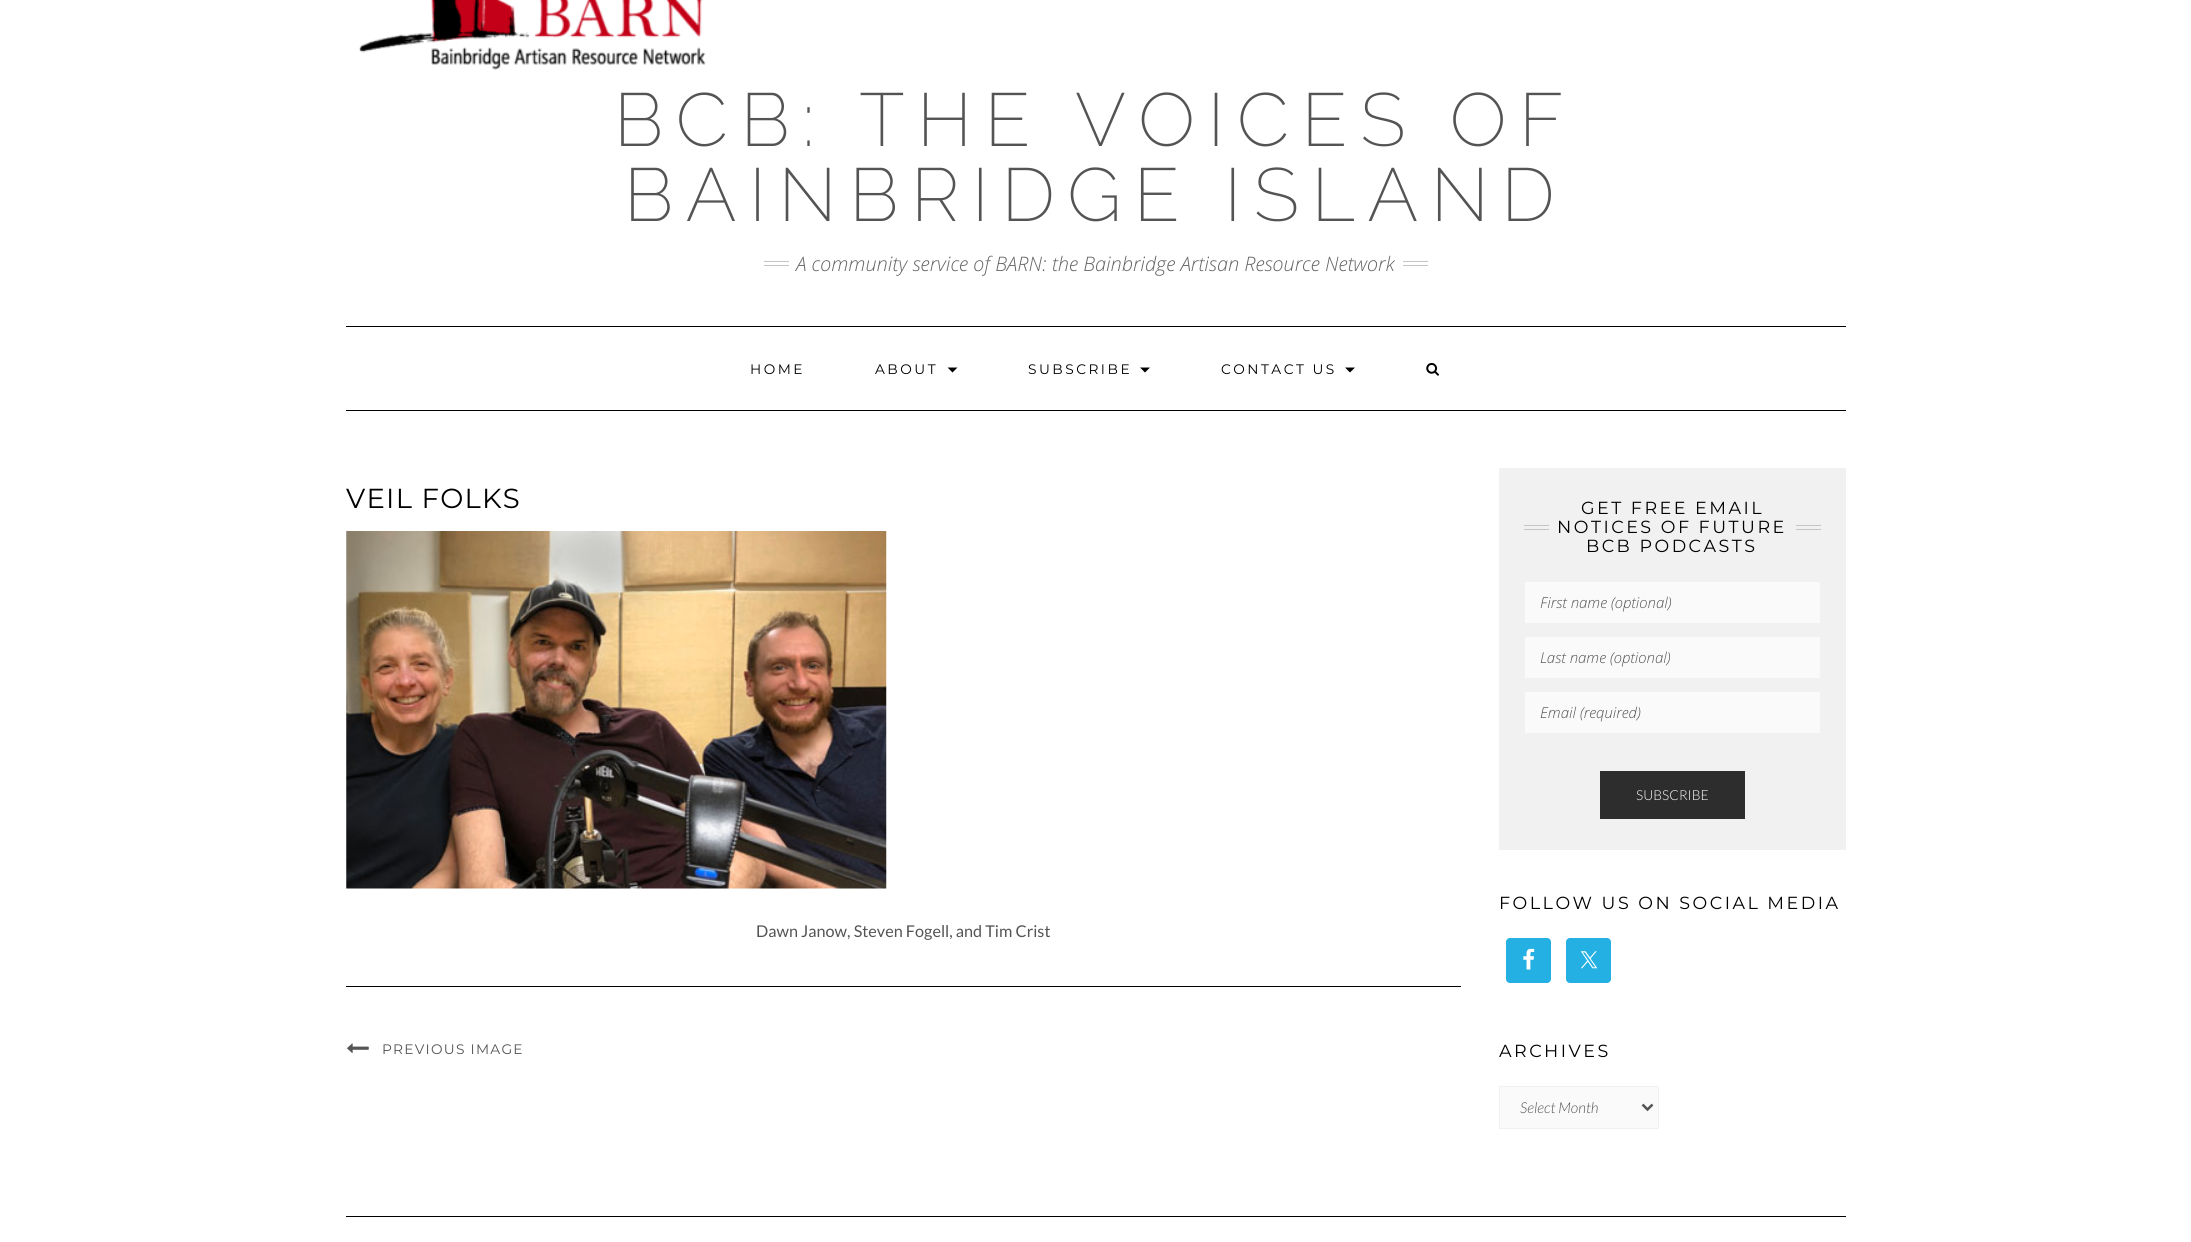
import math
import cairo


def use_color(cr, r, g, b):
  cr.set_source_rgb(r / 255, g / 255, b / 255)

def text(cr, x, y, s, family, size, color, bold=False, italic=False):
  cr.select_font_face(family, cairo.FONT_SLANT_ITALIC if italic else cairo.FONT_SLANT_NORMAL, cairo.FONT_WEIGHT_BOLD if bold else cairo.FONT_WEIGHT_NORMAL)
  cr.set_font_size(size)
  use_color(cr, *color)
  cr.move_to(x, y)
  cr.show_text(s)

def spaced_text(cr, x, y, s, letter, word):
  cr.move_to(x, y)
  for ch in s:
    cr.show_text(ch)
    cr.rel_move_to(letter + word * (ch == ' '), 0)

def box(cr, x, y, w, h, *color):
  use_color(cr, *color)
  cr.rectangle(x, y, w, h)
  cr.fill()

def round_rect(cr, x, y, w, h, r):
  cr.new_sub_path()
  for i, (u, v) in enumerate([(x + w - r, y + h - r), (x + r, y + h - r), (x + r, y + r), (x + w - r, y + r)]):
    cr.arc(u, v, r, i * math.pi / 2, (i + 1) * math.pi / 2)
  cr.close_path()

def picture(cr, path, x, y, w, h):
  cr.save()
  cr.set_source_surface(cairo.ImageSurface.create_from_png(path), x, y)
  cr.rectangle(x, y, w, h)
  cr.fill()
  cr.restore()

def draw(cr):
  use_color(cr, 255, 255, 255)
  cr.paint()
  picture(cr, "img_01.png", 359, 0, 347, 70)
  box(cr, 764, 261, 25, 1, 196, 196, 196)
  box(cr, 764, 265, 25, 1, 196, 196, 196)
  box(cr, 1403, 261, 25, 1, 196, 196, 196)
  box(cr, 1403, 265, 25, 1, 196, 196, 196)
  box(cr, 346, 326, 1500, 1, 0, 0, 0)
  box(cr, 346, 410, 1500, 1, 0, 0, 0)
  cr.new_path()
  cr.move_to(947.5, 367.5)
  cr.line_to(957.5, 367.5)
  cr.line_to(952.5, 372.5)
  cr.close_path()
  cr.fill()
  cr.new_path()
  cr.move_to(1140, 367.5)
  cr.line_to(1150, 367.5)
  cr.line_to(1145, 372.5)
  cr.close_path()
  cr.fill()
  cr.new_path()
  cr.move_to(1345, 367.5)
  cr.line_to(1355, 367.5)
  cr.line_to(1350, 372.5)
  cr.close_path()
  cr.fill()
  picture(cr, "img_02.png", 1426, 362, 13, 14)
  picture(cr, "img_03.png", 346, 531, 541, 358)
  box(cr, 346, 986, 1115, 1, 0, 0, 0)
  picture(cr, "img_04.png", 347, 1043, 22, 10)
  box(cr, 1499, 468, 347, 382, 241, 241, 241)
  box(cr, 1524, 525, 25, 1, 196, 196, 196)
  box(cr, 1524, 529, 25, 1, 196, 196, 196)
  box(cr, 1796, 525, 25, 1, 196, 196, 196)
  box(cr, 1796, 529, 25, 1, 196, 196, 196)
  box(cr, 1525, 582, 295, 41, 250, 250, 250)
  box(cr, 1525, 637, 295, 41, 250, 250, 250)
  box(cr, 1525, 692, 295, 41, 250, 250, 250)
  box(cr, 1600, 771, 145, 48, 45, 45, 45)
  use_color(cr, 36, 176, 226)
  round_rect(cr, 1506, 938, 45, 45, 4)
  cr.fill()
  picture(cr, "img_05.png", 1523, 948, 12, 22)
  round_rect(cr, 1566, 938, 45, 45, 4)
  cr.fill()
  picture(cr, "img_06.png", 1580, 951, 18, 18)
  use_color(cr, 250, 250, 250)
  cr.rectangle(1499.5, 1086.5, 159, 42)
  cr.fill_preserve()
  use_color(cr, 241, 241, 241)
  cr.set_line_width(1)
  cr.stroke()
  cr.new_path()
  cr.move_to(1642.5, 1104.5)
  cr.line_to(1647.5, 1109.5)
  cr.line_to(1652.5, 1104.5)
  use_color(cr, 84, 84, 84)
  cr.set_line_width(2.5)
  cr.stroke()
  box(cr, 346, 1216, 1500, 1, 0, 0, 0)
  cr.select_font_face("Raleway Thin")
  cr.set_font_size(75)
  use_color(cr, 84, 84, 84)
  spaced_text(cr, 614, 146, "BCB: THE VOICES OF", 12.5, 0)
  spaced_text(cr, 624, 221, "BAINBRIDGE ISLAND", 12.5, 0)
  text(cr, 796, 271, "A community service of BARN: the Bainbridge Artisan Resource Network", "Open Sans Light", 20, (100, 100, 100), italic=True)
  cr.select_font_face("Montserrat")
  cr.set_font_size(13.75)
  use_color(cr, 0, 0, 0)
  spaced_text(cr, 750, 374, "HOME", 2.5, 0)
  spaced_text(cr, 875, 374, "ABOUT", 2.5, 0)
  spaced_text(cr, 1028, 374, "SUBSCRIBE", 2.5, 0)
  spaced_text(cr, 1221, 374, "CONTACT US", 2.5, 0)
  cr.set_font_size(27.5)
  spaced_text(cr, 346, 508, "VEIL FOLKS", 1.25, 0)
  text(cr, 756, 937, "Dawn Janow, Steven Fogell, and Tim Crist", "Lato", 16.25, (84, 84, 84))
  cr.select_font_face("Montserrat")
  cr.set_font_size(13.75)
  spaced_text(cr, 382, 1054, "PREVIOUS IMAGE", 1.25, 0)
  cr.set_font_size(17.5)
  use_color(cr, 0, 0, 0)
  spaced_text(cr, 1581, 514, "GET FREE EMAIL", 2.5, 0)
  spaced_text(cr, 1557, 533, "NOTICES OF FUTURE", 2.5, 0)
  spaced_text(cr, 1586, 552, "BCB PODCASTS", 2.5, 0)
  text(cr, 1540, 608, "First name (optional)", "Open Sans Light", 15, (84, 84, 84), italic=True)
  text(cr, 1540, 663, "Last name (optional)", "Open Sans Light", 15, (84, 84, 84), italic=True)
  text(cr, 1540, 718, "Email (required)", "Open Sans Light", 15, (84, 84, 84), italic=True)
  text(cr, 1636, 800, "SUBSCRIBE", "Lato Light", 13.75, (255, 255, 255))
  cr.select_font_face("Montserrat")
  cr.set_font_size(17.5)
  use_color(cr, 0, 0, 0)
  spaced_text(cr, 1499, 909, "FOLLOW US ON SOCIAL MEDIA", 2.5, 0)
  spaced_text(cr, 1499, 1057, "ARCHIVES", 2.5, 0)
  text(cr, 1520, 1113, "Select Month", "Lato Light", 15, (84, 84, 84), italic=True)


surface = cairo.ImageSurface(cairo.FORMAT_RGB24, 2191, 1242)
cr = cairo.Context(surface)
options = cairo.FontOptions()
options.set_hint_metrics(cairo.HINT_METRICS_OFF)
options.set_hint_style(cairo.HINT_STYLE_NONE)
cr.set_font_options(options)
cr.set_miter_limit(4)
draw(cr)
surface.write_to_png("out.png")
